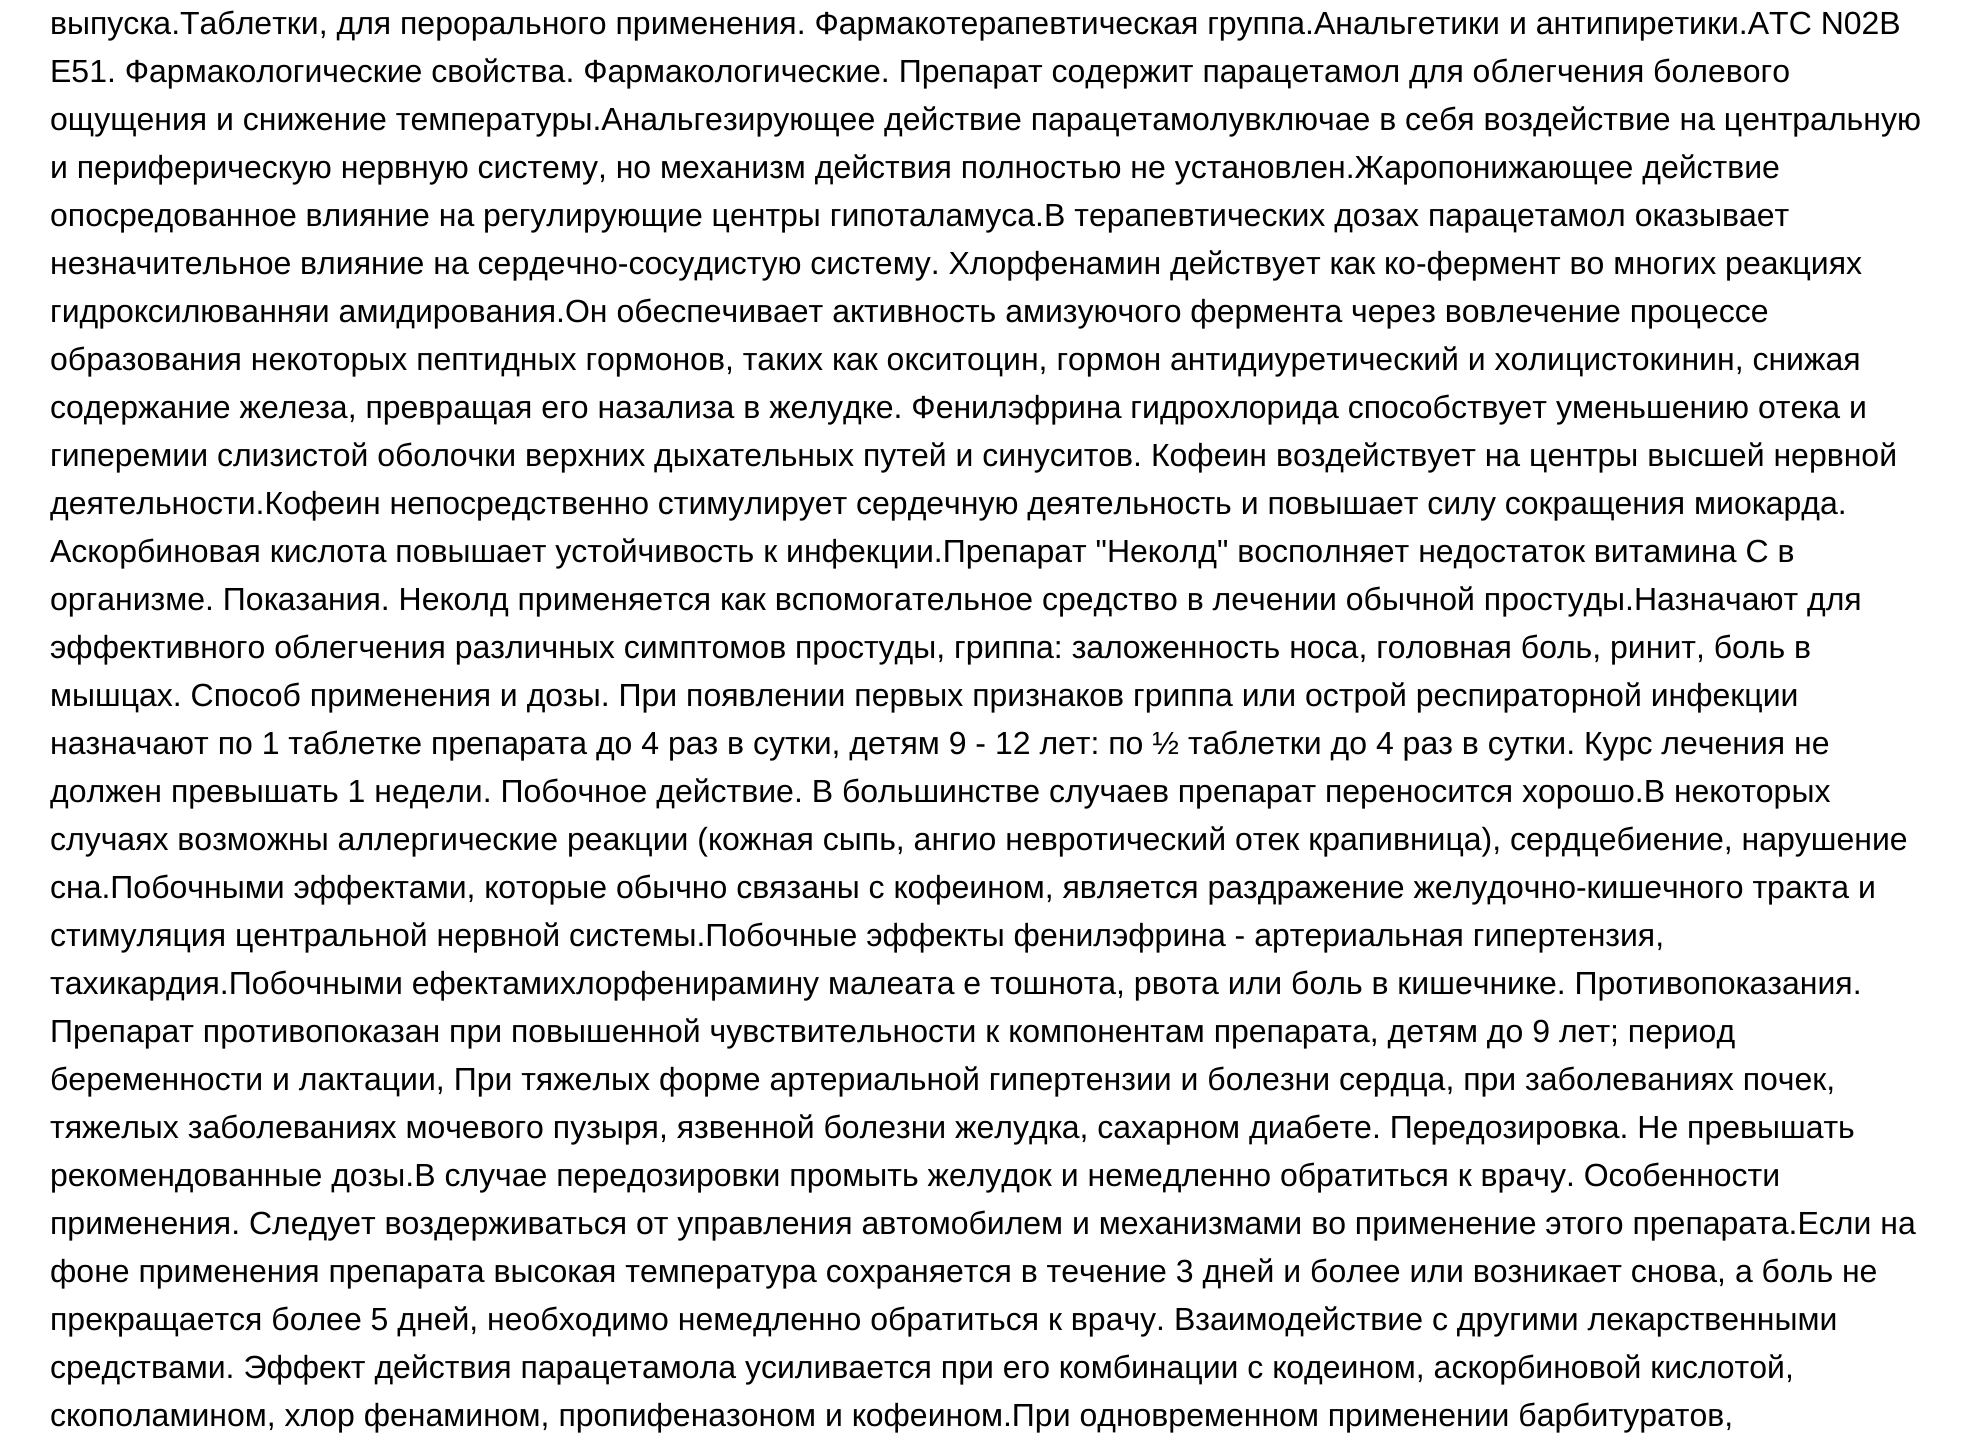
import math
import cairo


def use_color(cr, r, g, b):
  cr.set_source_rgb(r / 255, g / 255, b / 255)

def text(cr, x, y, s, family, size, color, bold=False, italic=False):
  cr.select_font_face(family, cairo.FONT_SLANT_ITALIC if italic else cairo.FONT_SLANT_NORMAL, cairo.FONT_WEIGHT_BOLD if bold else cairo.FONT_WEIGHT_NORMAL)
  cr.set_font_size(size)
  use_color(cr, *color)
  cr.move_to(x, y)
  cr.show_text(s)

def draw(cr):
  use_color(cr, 255, 255, 255)
  cr.paint()
  text(cr, 50, 34, "выпуска.Таблетки, для перорального применения. Фармакотерапевтическая группа.Анальгетики и антипиретики.АТС N02B", "Liberation Sans", 32, (0, 0, 0))
  text(cr, 50, 82, "E51. Фармакологические свойства. Фармакологические. Препарат содержит парацетамол для облегчения болевого", "Liberation Sans", 32, (0, 0, 0))
  text(cr, 50, 130, "ощущения и снижение температуры.Анальгезирующее действие парацетамолувключае в себя воздействие на центральную", "Liberation Sans", 32, (0, 0, 0))
  text(cr, 50, 178, "и периферическую нервную систему, но механизм действия полностью не установлен.Жаропонижающее действие", "Liberation Sans", 32, (0, 0, 0))
  text(cr, 50, 226, "опосредованное влияние на регулирующие центры гипоталамуса.В терапевтических дозах парацетамол оказывает", "Liberation Sans", 32, (0, 0, 0))
  text(cr, 50, 274, "незначительное влияние на сердечно-сосудистую систему. Хлорфенамин действует как ко-фермент во многих реакциях", "Liberation Sans", 32, (0, 0, 0))
  text(cr, 50, 322, "гидроксилюванняи амидирования.Он обеспечивает активность амизуючого фермента через вовлечение процессе", "Liberation Sans", 32, (0, 0, 0))
  text(cr, 50, 370, "образования некоторых пептидных гормонов, таких как окситоцин, гормон антидиуретический и холицистокинин, снижая", "Liberation Sans", 32, (0, 0, 0))
  text(cr, 50, 418, "содержание железа, превращая его назализа в желудке. Фенилэфрина гидрохлорида способствует уменьшению отека и", "Liberation Sans", 32, (0, 0, 0))
  text(cr, 50, 466, "гиперемии слизистой оболочки верхних дыхательных путей и синуситов. Кофеин воздействует на центры высшей нервной", "Liberation Sans", 32, (0, 0, 0))
  text(cr, 50, 514, "деятельности.Кофеин непосредственно стимулирует сердечную деятельность и повышает силу сокращения миокарда.", "Liberation Sans", 32, (0, 0, 0))
  text(cr, 50, 562, "Аскорбиновая кислота повышает устойчивость к инфекции.Препарат \"Неколд\" восполняет недостаток витамина С в", "Liberation Sans", 32, (0, 0, 0))
  text(cr, 50, 610, "организме. Показания. Неколд применяется как вспомогательное средство в лечении обычной простуды.Назначают для", "Liberation Sans", 32, (0, 0, 0))
  text(cr, 50, 658, "эффективного облегчения различных симптомов простуды, гриппа: заложенность носа, головная боль, ринит, боль в", "Liberation Sans", 32, (0, 0, 0))
  text(cr, 50, 706, "мышцах. Способ применения и дозы. При появлении первых признаков гриппа или острой респираторной инфекции", "Liberation Sans", 32, (0, 0, 0))
  text(cr, 50, 754, "назначают по 1 таблетке препарата до 4 раз в сутки, детям 9 - 12 лет: по ½ таблетки до 4 раз в сутки. Курс лечения не", "Liberation Sans", 32, (0, 0, 0))
  text(cr, 50, 802, "должен превышать 1 недели. Побочное действие. В большинстве случаев препарат переносится хорошо.В некоторых", "Liberation Sans", 32, (0, 0, 0))
  text(cr, 50, 850, "случаях возможны аллергические реакции (кожная сыпь, ангио невротический отек крапивница), сердцебиение, нарушение", "Liberation Sans", 32, (0, 0, 0))
  text(cr, 50, 898, "сна.Побочными эффектами, которые обычно связаны с кофеином, является раздражение желудочно-кишечного тракта и", "Liberation Sans", 32, (0, 0, 0))
  text(cr, 50, 946, "стимуляция центральной нервной системы.Побочные эффекты фенилэфрина - артериальная гипертензия,", "Liberation Sans", 32, (0, 0, 0))
  text(cr, 50, 994, "тахикардия.Побочными ефектамихлорфенирамину малеата е тошнота, рвота или боль в кишечнике. Противопоказания.", "Liberation Sans", 32, (0, 0, 0))
  text(cr, 50, 1042, "Препарат противопоказан при повышенной чувствительности к компонентам препарата, детям до 9 лет; период", "Liberation Sans", 32, (0, 0, 0))
  text(cr, 50, 1090, "беременности и лактации, При тяжелых форме артериальной гипертензии и болезни сердца, при заболеваниях почек,", "Liberation Sans", 32, (0, 0, 0))
  text(cr, 50, 1138, "тяжелых заболеваниях мочевого пузыря, язвенной болезни желудка, сахарном диабете. Передозировка. Не превышать", "Liberation Sans", 32, (0, 0, 0))
  text(cr, 50, 1186, "рекомендованные дозы.В случае передозировки промыть желудок и немедленно обратиться к врачу. Особенности", "Liberation Sans", 32, (0, 0, 0))
  text(cr, 50, 1234, "применения. Следует воздерживаться от управления автомобилем и механизмами во применение этого препарата.Если на", "Liberation Sans", 32, (0, 0, 0))
  text(cr, 50, 1282, "фоне применения препарата высокая температура сохраняется в течение 3 дней и более или возникает снова, а боль не", "Liberation Sans", 32, (0, 0, 0))
  text(cr, 50, 1330, "прекращается более 5 дней, необходимо немедленно обратиться к врачу. Взаимодействие с другими лекарственными", "Liberation Sans", 32, (0, 0, 0))
  text(cr, 50, 1378, "средствами. Эффект действия парацетамола усиливается при его комбинации с кодеином, аскорбиновой кислотой,", "Liberation Sans", 32, (0, 0, 0))
  text(cr, 50, 1426, "скополамином, хлор фенамином, пропифеназоном и кофеином.При одновременном применении барбитуратов,", "Liberation Sans", 32, (0, 0, 0))


surface = cairo.ImageSurface(cairo.FORMAT_RGB24, 1979, 1452)
cr = cairo.Context(surface)
options = cairo.FontOptions()
options.set_hint_metrics(cairo.HINT_METRICS_OFF)
options.set_hint_style(cairo.HINT_STYLE_NONE)
cr.set_font_options(options)
cr.set_miter_limit(4)
draw(cr)
surface.write_to_png("out.png")
